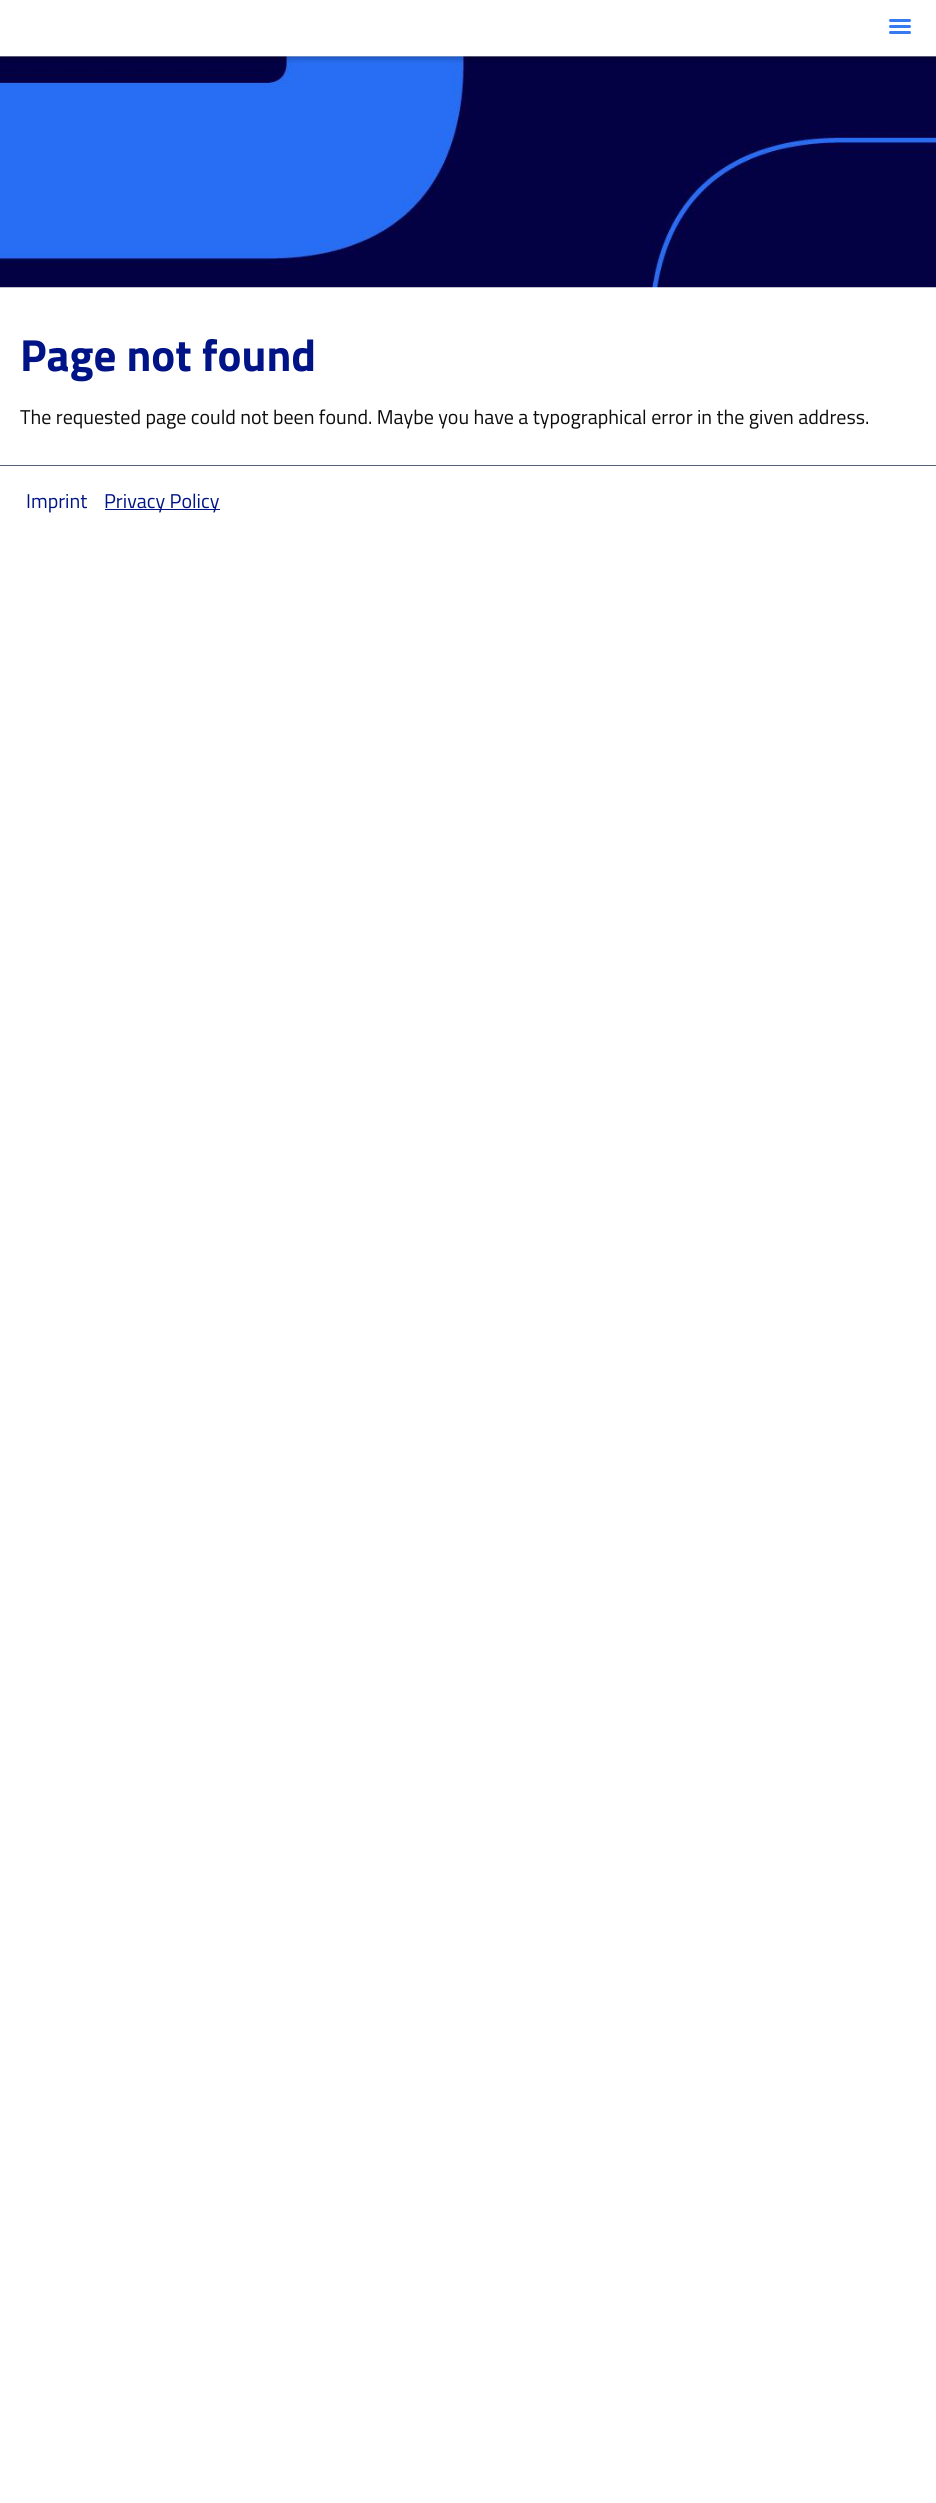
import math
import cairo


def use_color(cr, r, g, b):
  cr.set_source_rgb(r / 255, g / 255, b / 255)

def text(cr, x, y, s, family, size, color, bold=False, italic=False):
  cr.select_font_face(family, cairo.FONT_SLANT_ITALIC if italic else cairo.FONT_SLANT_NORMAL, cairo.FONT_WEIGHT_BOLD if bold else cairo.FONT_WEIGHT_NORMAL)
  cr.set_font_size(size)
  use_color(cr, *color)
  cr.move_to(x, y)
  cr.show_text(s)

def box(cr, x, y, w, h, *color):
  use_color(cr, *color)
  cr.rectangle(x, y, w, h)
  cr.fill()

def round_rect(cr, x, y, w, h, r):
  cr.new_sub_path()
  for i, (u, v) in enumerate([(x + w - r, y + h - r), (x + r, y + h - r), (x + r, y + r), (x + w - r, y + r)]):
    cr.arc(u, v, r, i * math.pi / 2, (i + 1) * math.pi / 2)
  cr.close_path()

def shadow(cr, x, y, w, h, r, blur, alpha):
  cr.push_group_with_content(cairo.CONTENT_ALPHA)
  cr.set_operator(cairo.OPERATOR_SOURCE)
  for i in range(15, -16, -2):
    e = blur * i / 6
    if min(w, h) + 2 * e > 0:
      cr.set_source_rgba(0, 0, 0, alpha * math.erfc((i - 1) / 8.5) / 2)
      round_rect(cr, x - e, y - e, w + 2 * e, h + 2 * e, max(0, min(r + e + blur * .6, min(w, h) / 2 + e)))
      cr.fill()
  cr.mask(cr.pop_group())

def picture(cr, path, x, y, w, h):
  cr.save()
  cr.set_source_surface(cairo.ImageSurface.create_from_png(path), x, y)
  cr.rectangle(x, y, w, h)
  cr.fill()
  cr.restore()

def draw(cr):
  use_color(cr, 255, 255, 255)
  cr.paint()
  picture(cr, "img_01.png", 0, 56, 936, 232)
  cr.save()
  cr.rectangle(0, 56, 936, 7)
  cr.clip()
  use_color(cr, 0, 0, 0)
  shadow(cr, -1, 0, 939, 59, 0, 3, 0.25)
  cr.restore()
  use_color(cr, 54, 122, 242)
  round_rect(cr, 889, 19, 22, 3, 1.5)
  cr.fill()
  round_rect(cr, 889, 25, 22, 3, 1.5)
  cr.fill()
  round_rect(cr, 889, 31, 22, 3, 1.5)
  cr.fill()
  box(cr, 0, 465, 936, 1, 84, 96, 118)
  box(cr, 105, 509, 115, 1, 0, 20, 135)
  text(cr, 20, 371, "Page not found", "Titillium Web", 45, (0, 20, 135), bold=True)
  text(cr, 20, 424, "The requested page could not been found. Maybe you have a typographical error in the given address.", "Titillium Web", 20, (13, 13, 13))
  text(cr, 26, 508, "Imprint", "Titillium Web", 20, (0, 20, 135))
  text(cr, 104, 508, "Privacy Policy", "Titillium Web", 20, (0, 20, 135))


surface = cairo.ImageSurface(cairo.FORMAT_RGB24, 936, 2503)
cr = cairo.Context(surface)
options = cairo.FontOptions()
options.set_hint_metrics(cairo.HINT_METRICS_OFF)
options.set_hint_style(cairo.HINT_STYLE_NONE)
cr.set_font_options(options)
cr.set_miter_limit(4)
draw(cr)
surface.write_to_png("out.png")
